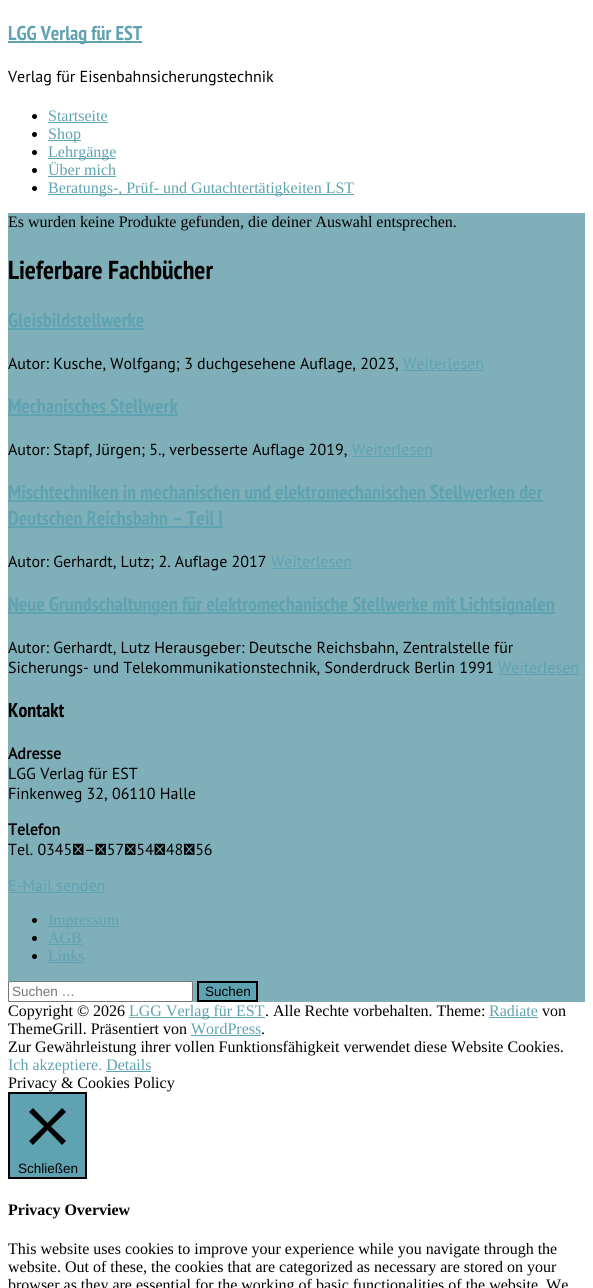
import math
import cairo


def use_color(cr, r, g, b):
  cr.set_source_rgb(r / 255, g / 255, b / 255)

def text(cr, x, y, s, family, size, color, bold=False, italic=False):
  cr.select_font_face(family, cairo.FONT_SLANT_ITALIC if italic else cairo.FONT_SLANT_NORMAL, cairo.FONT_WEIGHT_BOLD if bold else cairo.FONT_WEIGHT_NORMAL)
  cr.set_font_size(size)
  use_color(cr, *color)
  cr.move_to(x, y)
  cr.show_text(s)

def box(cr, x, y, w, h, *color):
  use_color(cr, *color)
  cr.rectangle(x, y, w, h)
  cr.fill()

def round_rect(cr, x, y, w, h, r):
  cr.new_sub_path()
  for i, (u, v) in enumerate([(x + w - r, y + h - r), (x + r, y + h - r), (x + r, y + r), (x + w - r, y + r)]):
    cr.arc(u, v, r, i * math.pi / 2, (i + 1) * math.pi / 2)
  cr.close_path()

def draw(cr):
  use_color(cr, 255, 255, 255)
  cr.paint()
  box(cr, 8, 41, 134, 2, 95, 162, 177)
  use_color(cr, 0, 0, 0)
  cr.arc(34.5, 116.5, 2.5, 0, 2 * math.pi)
  cr.fill()
  box(cr, 48, 122, 60, 1, 95, 162, 177)
  use_color(cr, 0, 0, 0)
  cr.arc(34.5, 134.5, 2.5, 0, 2 * math.pi)
  cr.fill()
  box(cr, 48, 140, 33, 1, 95, 162, 177)
  use_color(cr, 0, 0, 0)
  cr.arc(34.5, 152.5, 2.5, 0, 2 * math.pi)
  cr.fill()
  box(cr, 48, 158, 68, 1, 95, 162, 177)
  use_color(cr, 0, 0, 0)
  cr.arc(34.5, 170.5, 2.5, 0, 2 * math.pi)
  cr.fill()
  box(cr, 48, 176, 68, 1, 95, 162, 177)
  use_color(cr, 0, 0, 0)
  cr.arc(34.5, 188.5, 2.5, 0, 2 * math.pi)
  cr.fill()
  box(cr, 48, 194, 306, 1, 95, 162, 177)
  box(cr, 8, 213, 577, 789, 127, 175, 185)
  box(cr, 8, 328, 136, 2, 95, 162, 177)
  box(cr, 403, 370, 81, 1, 95, 162, 177)
  box(cr, 8, 414, 170, 2, 95, 162, 177)
  box(cr, 352, 456, 81, 1, 95, 162, 177)
  box(cr, 8, 500, 535, 2, 95, 162, 177)
  box(cr, 8, 526, 215, 2, 95, 162, 177)
  box(cr, 271, 568, 81, 1, 95, 162, 177)
  box(cr, 8, 612, 547, 2, 95, 162, 177)
  box(cr, 498, 674, 81, 1, 95, 162, 177)
  box(cr, 8, 892, 97, 1, 95, 162, 177)
  use_color(cr, 0, 0, 0)
  cr.arc(34.5, 920.5, 2.5, 0, 2 * math.pi)
  cr.fill()
  box(cr, 48, 926, 71, 1, 95, 162, 177)
  use_color(cr, 0, 0, 0)
  cr.arc(34.5, 938.5, 2.5, 0, 2 * math.pi)
  cr.fill()
  box(cr, 48, 944, 34, 1, 95, 162, 177)
  use_color(cr, 0, 0, 0)
  cr.arc(34.5, 956.5, 2.5, 0, 2 * math.pi)
  cr.fill()
  box(cr, 48, 962, 36, 1, 95, 162, 177)
  use_color(cr, 255, 255, 255)
  round_rect(cr, 8.5, 981.5, 184, 20, 1.5)
  cr.fill_preserve()
  use_color(cr, 118, 118, 118)
  cr.set_line_width(1)
  cr.stroke()
  use_color(cr, 95, 162, 177)
  cr.rectangle(198, 982, 59, 19)
  cr.fill_preserve()
  use_color(cr, 0, 0, 0)
  cr.set_line_width(2)
  cr.stroke()
  box(cr, 129, 1017, 136, 1, 95, 162, 177)
  box(cr, 489, 1017, 49, 1, 95, 162, 177)
  box(cr, 191, 1035, 70, 1, 95, 162, 177)
  box(cr, 106, 1071, 45, 1, 95, 162, 177)
  cr.rectangle(9, 1093, 77, 85)
  cr.fill_preserve()
  use_color(cr, 0, 0, 0)
  cr.stroke()
  cr.new_path()
  cr.move_to(66, 1112)
  cr.line_to(62, 1108)
  cr.line_to(47.5, 1123)
  cr.line_to(33, 1108)
  cr.line_to(29, 1112)
  cr.line_to(44, 1126.5)
  cr.line_to(29, 1141)
  cr.line_to(33, 1145)
  cr.line_to(47.5, 1130)
  cr.line_to(62, 1145)
  cr.line_to(66, 1141)
  cr.line_to(51, 1126.5)
  cr.close_path()
  cr.fill()
  text(cr, 8, 40, "LGG Verlag für EST", "PT Sans Narrow", 20, (95, 162, 177), bold=True)
  text(cr, 8, 82, "Verlag für Eisenbahnsicherungstechnik", "PT Sans", 16, (0, 0, 0))
  text(cr, 48, 121, "Startseite", "Liberation Serif", 16, (95, 162, 177))
  text(cr, 48, 139, "Shop", "Liberation Serif", 16, (95, 162, 177))
  text(cr, 48, 157, "Lehrgänge", "Liberation Serif", 16, (95, 162, 177))
  text(cr, 48, 175, "Über mich", "Liberation Serif", 16, (95, 162, 177))
  text(cr, 48, 193, "Beratungs-, Prüf- und Gutachtertätigkeiten LST", "Liberation Serif", 16, (95, 162, 177))
  text(cr, 8, 227, "Es wurden keine Produkte gefunden, die deiner Auswahl entsprechen.", "Liberation Serif", 16, (0, 0, 0))
  text(cr, 8, 279, "Lieferbare Fachbücher", "PT Sans Narrow", 26, (0, 0, 0), bold=True)
  text(cr, 8, 327, "Gleisbildstellwerke", "PT Sans Narrow", 20, (95, 162, 177), bold=True)
  text(cr, 8, 369, "Autor: Kusche, Wolfgang; 3 duchgesehene Auflage, 2023,", "PT Sans", 16, (0, 0, 0))
  text(cr, 403, 369, "Weiterlesen", "PT Sans", 16, (95, 162, 177))
  text(cr, 8, 413, "Mechanisches Stellwerk", "PT Sans Narrow", 20, (95, 162, 177), bold=True)
  text(cr, 8, 455, "Autor: Stapf, Jürgen; 5., verbesserte Auflage 2019,", "PT Sans", 16, (0, 0, 0))
  text(cr, 352, 455, "Weiterlesen", "PT Sans", 16, (95, 162, 177))
  text(cr, 8, 499, "Mischtechniken in mechanischen und elektromechanischen Stellwerken der", "PT Sans Narrow", 20, (95, 162, 177), bold=True)
  text(cr, 8, 525, "Deutschen Reichsbahn – Teil I", "PT Sans Narrow", 20, (95, 162, 177), bold=True)
  text(cr, 8, 567, "Autor: Gerhardt, Lutz; 2. Auflage 2017", "PT Sans", 16, (0, 0, 0))
  text(cr, 271, 567, "Weiterlesen", "PT Sans", 16, (95, 162, 177))
  text(cr, 8, 611, "Neue Grundschaltungen für elektromechanische Stellwerke mit Lichtsignalen", "PT Sans Narrow", 20, (95, 162, 177), bold=True)
  text(cr, 8, 653, "Autor: Gerhardt, Lutz Herausgeber: Deutsche Reichsbahn, Zentralstelle für", "PT Sans", 16, (0, 0, 0))
  text(cr, 8, 673, "Sicherungs- und Telekommunikationstechnik, Sonderdruck Berlin 1991", "PT Sans", 16, (0, 0, 0))
  text(cr, 498, 673, "Weiterlesen", "PT Sans", 16, (95, 162, 177))
  text(cr, 8, 717, "Kontakt", "PT Sans Narrow", 20, (0, 0, 0), bold=True)
  text(cr, 8, 759, "Adresse", "PT Sans", 16, (0, 0, 0), bold=True)
  text(cr, 8, 779, "LGG Verlag für EST", "PT Sans", 16, (0, 0, 0))
  text(cr, 8, 799, "Finkenweg 32, 06110 Halle", "PT Sans", 16, (0, 0, 0))
  text(cr, 8, 835, "Telefon", "PT Sans", 16, (0, 0, 0), bold=True)
  text(cr, 8, 855, "Tel. 0345 – 57 54 48 56", "PT Sans", 16, (0, 0, 0))
  text(cr, 8, 891, "E-Mail senden", "PT Sans", 16, (95, 162, 177))
  text(cr, 48, 925, "Impressum", "Liberation Serif", 16, (95, 162, 177))
  text(cr, 48, 943, "AGB", "Liberation Serif", 16, (95, 162, 177))
  text(cr, 48, 961, "Links", "Liberation Serif", 16, (95, 162, 177))
  text(cr, 12, 996, "Suchen …", "Liberation Sans", 13.5, (117, 117, 117))
  text(cr, 205, 996, "Suchen", "Liberation Sans", 13.5, (0, 0, 0))
  text(cr, 8, 1016, "Copyright © 2026", "Liberation Serif", 16, (0, 0, 0))
  text(cr, 129, 1016, "LGG Verlag für EST", "Liberation Serif", 16, (95, 162, 177))
  text(cr, 265, 1016, ". Alle Rechte vorbehalten. Theme:", "Liberation Serif", 16, (0, 0, 0))
  text(cr, 489, 1016, "Radiate", "Liberation Serif", 16, (95, 162, 177))
  text(cr, 542, 1016, "von", "Liberation Serif", 16, (0, 0, 0))
  text(cr, 8, 1034, "ThemeGrill. Präsentiert von", "Liberation Serif", 16, (0, 0, 0))
  text(cr, 191, 1034, "WordPress", "Liberation Serif", 16, (95, 162, 177))
  text(cr, 261, 1034, ".", "Liberation Serif", 16, (0, 0, 0))
  text(cr, 8, 1052, "Zur Gewährleistung ihrer vollen Funktionsfähigkeit verwendet diese Website Cookies.", "Liberation Serif", 16, (0, 0, 0))
  text(cr, 8, 1070, "Ich akzeptiere. Details", "Liberation Serif", 16, (95, 162, 177))
  text(cr, 8, 1088, "Privacy & Cookies Policy", "Liberation Serif", 16, (0, 0, 0))
  text(cr, 18, 1173, "Schließen", "Liberation Sans", 13.5, (0, 0, 0))
  text(cr, 8, 1215, "Privacy Overview", "Liberation Serif", 16, (0, 0, 0), bold=True)
  text(cr, 8, 1254, "This website uses cookies to improve your experience while you navigate through the", "Liberation Serif", 16, (0, 0, 0))
  text(cr, 8, 1272, "website. Out of these, the cookies that are categorized as necessary are stored on your", "Liberation Serif", 16, (0, 0, 0))
  text(cr, 8, 1290, "browser as they are essential for the working of basic functionalities of the website. We", "Liberation Serif", 16, (0, 0, 0))


surface = cairo.ImageSurface(cairo.FORMAT_RGB24, 593, 1288)
cr = cairo.Context(surface)
options = cairo.FontOptions()
options.set_hint_metrics(cairo.HINT_METRICS_OFF)
options.set_hint_style(cairo.HINT_STYLE_NONE)
cr.set_font_options(options)
cr.set_miter_limit(4)
draw(cr)
surface.write_to_png("out.png")
